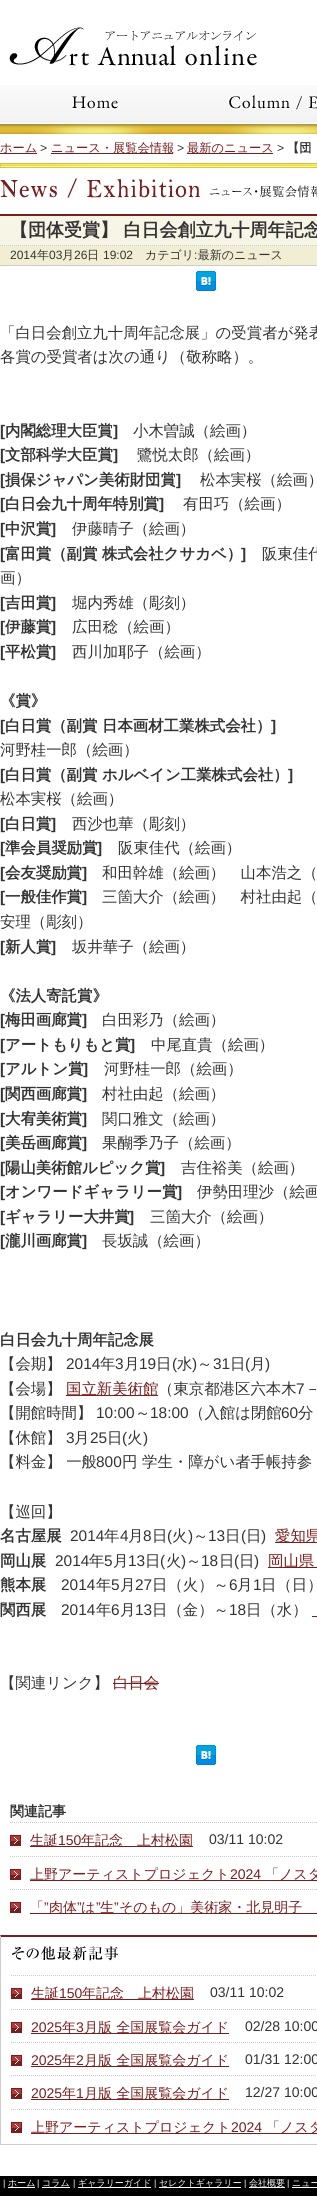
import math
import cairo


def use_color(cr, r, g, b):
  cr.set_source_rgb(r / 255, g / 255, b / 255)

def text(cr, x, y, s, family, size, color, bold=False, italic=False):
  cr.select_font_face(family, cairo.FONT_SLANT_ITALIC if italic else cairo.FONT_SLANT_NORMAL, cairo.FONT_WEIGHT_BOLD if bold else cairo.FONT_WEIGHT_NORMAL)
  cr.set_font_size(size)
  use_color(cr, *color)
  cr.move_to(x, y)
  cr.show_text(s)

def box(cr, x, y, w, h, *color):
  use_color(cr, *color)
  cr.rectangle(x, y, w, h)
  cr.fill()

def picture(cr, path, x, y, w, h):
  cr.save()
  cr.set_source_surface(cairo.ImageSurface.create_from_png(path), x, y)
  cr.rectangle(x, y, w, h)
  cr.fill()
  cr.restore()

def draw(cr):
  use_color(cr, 255, 255, 255)
  cr.paint()
  picture(cr, "img_01.png", 0, 85, 317, 11)
  picture(cr, "img_02.png", 9, 27, 248, 39)
  picture(cr, "img_03.png", 0, 96, 192, 38)
  picture(cr, "img_04.png", 192, 95, 125, 39)
  box(cr, 0, 153, 37, 1, 120, 30, 30)
  box(cr, 51, 153, 122, 1, 120, 30, 30)
  box(cr, 187, 153, 86, 1, 120, 30, 30)
  picture(cr, "img_05.png", 0, 163, 317, 35)
  box(cr, 0, 214, 317, 2, 121, 31, 31)
  box(cr, 0, 265, 317, 1, 204, 204, 204)
  box(cr, 0, 216, 317, 30, 247, 245, 230)
  cr.new_path()
  cr.move_to(0, 245.5)
  cr.line_to(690, 245.5)
  use_color(cr, 204, 204, 204)
  cr.set_line_width(1)
  cr.set_dash([1, 1])
  cr.stroke()
  box(cr, 0, 246, 317, 19, 241, 238, 212)
  picture(cr, "img_06.png", 196, 271, 20, 20)
  box(cr, 66, 1395, 92, 1, 120, 30, 30)
  box(cr, 275, 1542, 42, 1, 120, 30, 30)
  box(cr, 268, 1567, 49, 1, 120, 30, 30)
  box(cr, 312, 1616, 5, 1, 120, 30, 30)
  box(cr, 113, 1683, 46, 1, 120, 30, 30)
  picture(cr, "img_06.png", 196, 1745, 20, 20)
  cr.new_path()
  cr.move_to(10, 1822.5)
  cr.line_to(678, 1822.5)
  use_color(cr, 204, 204, 204)
  cr.stroke()
  picture(cr, "img_07.png", 10, 1835, 11, 11)
  box(cr, 30, 1846, 163, 1, 120, 30, 30)
  cr.new_path()
  cr.move_to(10, 1856.5)
  cr.line_to(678, 1856.5)
  use_color(cr, 204, 204, 204)
  cr.stroke()
  picture(cr, "img_07.png", 10, 1869, 11, 11)
  box(cr, 30, 1880, 287, 1, 120, 30, 30)
  cr.new_path()
  cr.move_to(10, 1889.5)
  cr.line_to(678, 1889.5)
  use_color(cr, 204, 204, 204)
  cr.stroke()
  picture(cr, "img_07.png", 10, 1902, 11, 11)
  box(cr, 30, 1913, 287, 1, 120, 30, 30)
  use_color(cr, 121, 31, 31)
  cr.new_path()
  cr.move_to(0, 1935)
  cr.line_to(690, 1935)
  cr.line_to(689, 1937)
  cr.line_to(1, 1937)
  cr.close_path()
  cr.fill()
  box(cr, 0, 2144, 317, 1, 204, 204, 204)
  cr.new_path()
  cr.move_to(0, 2145)
  cr.line_to(0, 1935)
  cr.line_to(1, 1937)
  cr.line_to(1, 2144)
  cr.close_path()
  cr.fill()
  picture(cr, "img_08.png", 12, 1946, 107, 15)
  cr.new_path()
  cr.move_to(11, 1975.5)
  cr.line_to(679, 1975.5)
  cr.stroke()
  picture(cr, "img_07.png", 11, 1988, 11, 11)
  box(cr, 31, 1999, 163, 1, 120, 30, 30)
  cr.new_path()
  cr.move_to(11, 2009.5)
  cr.line_to(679, 2009.5)
  use_color(cr, 204, 204, 204)
  cr.stroke()
  picture(cr, "img_07.png", 11, 2022, 11, 11)
  box(cr, 31, 2033, 198, 1, 120, 30, 30)
  cr.new_path()
  cr.move_to(11, 2042.5)
  cr.line_to(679, 2042.5)
  use_color(cr, 204, 204, 204)
  cr.stroke()
  picture(cr, "img_07.png", 11, 2055, 11, 11)
  box(cr, 31, 2066, 198, 1, 120, 30, 30)
  cr.new_path()
  cr.move_to(11, 2075.5)
  cr.line_to(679, 2075.5)
  use_color(cr, 204, 204, 204)
  cr.stroke()
  picture(cr, "img_07.png", 11, 2088, 11, 11)
  box(cr, 31, 2099, 198, 1, 120, 30, 30)
  cr.new_path()
  cr.move_to(11, 2109.5)
  cr.line_to(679, 2109.5)
  use_color(cr, 204, 204, 204)
  cr.stroke()
  picture(cr, "img_07.png", 11, 2122, 11, 11)
  box(cr, 31, 2133, 286, 1, 120, 30, 30)
  box(cr, 0, 2176, 317, 20, 0, 0, 0)
  box(cr, 8, 2187, 27, 1, 255, 255, 255)
  box(cr, 42, 2187, 28, 1, 255, 255, 255)
  box(cr, 78, 2187, 73, 1, 255, 255, 255)
  box(cr, 159, 2187, 82, 1, 255, 255, 255)
  box(cr, 249, 2187, 36, 1, 255, 255, 255)
  box(cr, 292, 2187, 25, 1, 255, 255, 255)
  text(cr, 0, 152, "ホーム", "WenQuanYi Zen Hei Medium", 12.25, (120, 30, 30))
  text(cr, 40, 152, ">", "Liberation Sans", 12.25, (51, 51, 51))
  text(cr, 51, 152, "ニュース・展覧会情報", "WenQuanYi Zen Hei Medium", 12.25, (120, 30, 30))
  text(cr, 177, 152, ">", "Liberation Sans", 12.25, (51, 51, 51))
  text(cr, 187, 152, "最新のニュース", "WenQuanYi Zen Hei Medium", 12.25, (120, 30, 30))
  text(cr, 277, 152, ">", "Liberation Sans", 12.25, (51, 51, 51))
  text(cr, 287, 152, "【団", "WenQuanYi Zen Hei", 12.25, (51, 51, 51), bold=True)
  text(cr, 10, 236, "【団体受賞】 白日会創立九十周年記念", "WenQuanYi Zen Hei", 18, (51, 51, 51), bold=True)
  text(cr, 10, 259, "2014", "Liberation Sans", 12, (51, 51, 51))
  text(cr, 37, 259, "年", "WenQuanYi Zen Hei Medium", 12, (51, 51, 51))
  text(cr, 49, 259, "03", "Liberation Sans", 12, (51, 51, 51))
  text(cr, 62, 259, "月", "WenQuanYi Zen Hei Medium", 12, (51, 51, 51))
  text(cr, 74, 259, "26", "Liberation Sans", 12, (51, 51, 51))
  text(cr, 87, 259, "日", "WenQuanYi Zen Hei Medium", 12, (51, 51, 51))
  text(cr, 103, 259, "19:02", "Liberation Sans", 12, (51, 51, 51))
  text(cr, 145, 259, "カテゴリ 最新のニュース", "WenQuanYi Zen Hei Medium", 12, (51, 51, 51))
  text(cr, 194, 259, ":", "Liberation Sans", 12, (51, 51, 51))
  text(cr, 0, 338, "「白日会創立九十周年記念展」の受賞者が発表", "WenQuanYi Zen Hei Medium", 15.4, (51, 51, 51))
  text(cr, 0, 362, "各賞の受賞者は次の通り（敬称略）。", "WenQuanYi Zen Hei Medium", 15.4, (51, 51, 51))
  text(cr, 0, 436, "[", "Liberation Sans", 15.4, (51, 51, 51), bold=True)
  text(cr, 5, 436, "内閣総理大臣賞", "WenQuanYi Zen Hei", 15.4, (51, 51, 51), bold=True)
  text(cr, 113, 436, "]", "Liberation Sans", 15.4, (51, 51, 51), bold=True)
  text(cr, 133, 436, "小木曽誠（絵画）", "WenQuanYi Zen Hei Medium", 15.4, (51, 51, 51))
  text(cr, 0, 460, "[", "Liberation Sans", 15.4, (51, 51, 51), bold=True)
  text(cr, 5, 460, "文部科学大臣賞", "WenQuanYi Zen Hei", 15.4, (51, 51, 51), bold=True)
  text(cr, 113, 460, "]", "Liberation Sans", 15.4, (51, 51, 51), bold=True)
  text(cr, 137, 460, "鷺悦太郎（絵画）", "WenQuanYi Zen Hei Medium", 15.4, (51, 51, 51))
  text(cr, 0, 485, "[", "Liberation Sans", 15.4, (51, 51, 51), bold=True)
  text(cr, 5, 485, "損保ジャパン美術財団賞", "WenQuanYi Zen Hei", 15.4, (51, 51, 51), bold=True)
  text(cr, 176, 485, "]", "Liberation Sans", 15.4, (51, 51, 51), bold=True)
  text(cr, 200, 485, "松本実桜（絵画）", "WenQuanYi Zen Hei Medium", 15.4, (51, 51, 51))
  text(cr, 0, 509, "[", "Liberation Sans", 15.4, (51, 51, 51), bold=True)
  text(cr, 5, 509, "白日会九十周年特別賞", "WenQuanYi Zen Hei", 15.4, (51, 51, 51), bold=True)
  text(cr, 159, 509, "]", "Liberation Sans", 15.4, (51, 51, 51), bold=True)
  text(cr, 183, 509, "有田巧（絵画）", "WenQuanYi Zen Hei Medium", 15.4, (51, 51, 51))
  text(cr, 0, 534, "[", "Liberation Sans", 15.4, (51, 51, 51), bold=True)
  text(cr, 5, 534, "中沢賞", "WenQuanYi Zen Hei", 15.4, (51, 51, 51), bold=True)
  text(cr, 51, 534, "]", "Liberation Sans", 15.4, (51, 51, 51), bold=True)
  text(cr, 72, 534, "伊藤晴子（絵画）", "WenQuanYi Zen Hei Medium", 15.4, (51, 51, 51))
  text(cr, 0, 559, "[", "Liberation Sans", 15.4, (51, 51, 51), bold=True)
  text(cr, 5, 559, "富田賞（副賞 株式会社クサカベ）", "WenQuanYi Zen Hei", 15.4, (51, 51, 51), bold=True)
  text(cr, 241, 559, "]", "Liberation Sans", 15.4, (51, 51, 51), bold=True)
  text(cr, 262, 559, "阪東佳代", "WenQuanYi Zen Hei Medium", 15.4, (51, 51, 51))
  text(cr, 0, 583, "画）", "WenQuanYi Zen Hei Medium", 15.4, (51, 51, 51))
  text(cr, 0, 608, "[", "Liberation Sans", 15.4, (51, 51, 51), bold=True)
  text(cr, 5, 608, "吉田賞", "WenQuanYi Zen Hei", 15.4, (51, 51, 51), bold=True)
  text(cr, 51, 608, "]", "Liberation Sans", 15.4, (51, 51, 51), bold=True)
  text(cr, 72, 608, "堀内秀雄（彫刻）", "WenQuanYi Zen Hei Medium", 15.4, (51, 51, 51))
  text(cr, 0, 632, "[", "Liberation Sans", 15.4, (51, 51, 51), bold=True)
  text(cr, 5, 632, "伊藤賞", "WenQuanYi Zen Hei", 15.4, (51, 51, 51), bold=True)
  text(cr, 51, 632, "]", "Liberation Sans", 15.4, (51, 51, 51), bold=True)
  text(cr, 72, 632, "広田稔（絵画）", "WenQuanYi Zen Hei Medium", 15.4, (51, 51, 51))
  text(cr, 0, 657, "[", "Liberation Sans", 15.4, (51, 51, 51), bold=True)
  text(cr, 5, 657, "平松賞", "WenQuanYi Zen Hei", 15.4, (51, 51, 51), bold=True)
  text(cr, 51, 657, "]", "Liberation Sans", 15.4, (51, 51, 51), bold=True)
  text(cr, 72, 657, "西川加耶子（絵画）", "WenQuanYi Zen Hei Medium", 15.4, (51, 51, 51))
  text(cr, 0, 706, "《賞》", "WenQuanYi Zen Hei", 15.4, (51, 51, 51), bold=True)
  text(cr, 0, 731, "[", "Liberation Sans", 15.4, (51, 51, 51), bold=True)
  text(cr, 5, 731, "白日賞（副賞 日本画材工業株式会社）", "WenQuanYi Zen Hei", 15.4, (51, 51, 51), bold=True)
  text(cr, 271, 731, "]", "Liberation Sans", 15.4, (51, 51, 51), bold=True)
  text(cr, 0, 755, "河野桂一郎（絵画）", "WenQuanYi Zen Hei Medium", 15.4, (51, 51, 51))
  text(cr, 0, 780, "[", "Liberation Sans", 15.4, (51, 51, 51), bold=True)
  text(cr, 5, 780, "白日賞（副賞 ホルベイン工業株式会社）", "WenQuanYi Zen Hei", 15.4, (51, 51, 51), bold=True)
  text(cr, 288, 780, "]", "Liberation Sans", 15.4, (51, 51, 51), bold=True)
  text(cr, 0, 804, "松本実桜（絵画）", "WenQuanYi Zen Hei Medium", 15.4, (51, 51, 51))
  text(cr, 0, 829, "[", "Liberation Sans", 15.4, (51, 51, 51), bold=True)
  text(cr, 5, 829, "白日賞", "WenQuanYi Zen Hei", 15.4, (51, 51, 51), bold=True)
  text(cr, 51, 829, "]", "Liberation Sans", 15.4, (51, 51, 51), bold=True)
  text(cr, 72, 829, "西沙也華（彫刻）", "WenQuanYi Zen Hei Medium", 15.4, (51, 51, 51))
  text(cr, 0, 853, "[", "Liberation Sans", 15.4, (51, 51, 51), bold=True)
  text(cr, 5, 853, "準会員奨励賞", "WenQuanYi Zen Hei", 15.4, (51, 51, 51), bold=True)
  text(cr, 97, 853, "]", "Liberation Sans", 15.4, (51, 51, 51), bold=True)
  text(cr, 118, 853, "阪東佳代（絵画）", "WenQuanYi Zen Hei Medium", 15.4, (51, 51, 51))
  text(cr, 0, 878, "[", "Liberation Sans", 15.4, (51, 51, 51), bold=True)
  text(cr, 5, 878, "会友奨励賞", "WenQuanYi Zen Hei", 15.4, (51, 51, 51), bold=True)
  text(cr, 82, 878, "]", "Liberation Sans", 15.4, (51, 51, 51), bold=True)
  text(cr, 102, 878, "和田幹雄（絵画）　山本浩之（", "WenQuanYi Zen Hei Medium", 15.4, (51, 51, 51))
  text(cr, 0, 902, "[", "Liberation Sans", 15.4, (51, 51, 51), bold=True)
  text(cr, 5, 902, "一般佳作賞", "WenQuanYi Zen Hei", 15.4, (51, 51, 51), bold=True)
  text(cr, 82, 902, "]", "Liberation Sans", 15.4, (51, 51, 51), bold=True)
  text(cr, 102, 902, "三箇大介（絵画）　村社由起（", "WenQuanYi Zen Hei Medium", 15.4, (51, 51, 51))
  text(cr, 0, 927, "安理（彫刻）", "WenQuanYi Zen Hei Medium", 15.4, (51, 51, 51))
  text(cr, 0, 952, "[", "Liberation Sans", 15.4, (51, 51, 51), bold=True)
  text(cr, 5, 952, "新人賞", "WenQuanYi Zen Hei", 15.4, (51, 51, 51), bold=True)
  text(cr, 51, 952, "]", "Liberation Sans", 15.4, (51, 51, 51), bold=True)
  text(cr, 72, 952, "坂井華子（絵画）", "WenQuanYi Zen Hei Medium", 15.4, (51, 51, 51))
  text(cr, 0, 1001, "《法人寄託賞》", "WenQuanYi Zen Hei", 15.4, (51, 51, 51), bold=True)
  text(cr, 0, 1025, "[", "Liberation Sans", 15.4, (51, 51, 51), bold=True)
  text(cr, 5, 1025, "梅田画廊賞", "WenQuanYi Zen Hei", 15.4, (51, 51, 51), bold=True)
  text(cr, 82, 1025, "]", "Liberation Sans", 15.4, (51, 51, 51), bold=True)
  text(cr, 102, 1025, "白田彩乃（絵画）", "WenQuanYi Zen Hei Medium", 15.4, (51, 51, 51))
  text(cr, 0, 1050, "[", "Liberation Sans", 15.4, (51, 51, 51), bold=True)
  text(cr, 5, 1050, "アートもりもと賞", "WenQuanYi Zen Hei", 15.4, (51, 51, 51), bold=True)
  text(cr, 130, 1050, "]", "Liberation Sans", 15.4, (51, 51, 51), bold=True)
  text(cr, 151, 1050, "中尾直貴（絵画）", "WenQuanYi Zen Hei Medium", 15.4, (51, 51, 51))
  text(cr, 0, 1074, "[", "Liberation Sans", 15.4, (51, 51, 51), bold=True)
  text(cr, 5, 1074, "アルトン賞", "WenQuanYi Zen Hei", 15.4, (51, 51, 51), bold=True)
  text(cr, 83, 1074, "]", "Liberation Sans", 15.4, (51, 51, 51), bold=True)
  text(cr, 104, 1074, "河野桂一郎（絵画）", "WenQuanYi Zen Hei Medium", 15.4, (51, 51, 51))
  text(cr, 0, 1099, "[", "Liberation Sans", 15.4, (51, 51, 51), bold=True)
  text(cr, 5, 1099, "関西画廊賞", "WenQuanYi Zen Hei", 15.4, (51, 51, 51), bold=True)
  text(cr, 82, 1099, "]", "Liberation Sans", 15.4, (51, 51, 51), bold=True)
  text(cr, 102, 1099, "村社由起（絵画）", "WenQuanYi Zen Hei Medium", 15.4, (51, 51, 51))
  text(cr, 0, 1124, "[", "Liberation Sans", 15.4, (51, 51, 51), bold=True)
  text(cr, 5, 1124, "大宥美術賞", "WenQuanYi Zen Hei", 15.4, (51, 51, 51), bold=True)
  text(cr, 82, 1124, "]", "Liberation Sans", 15.4, (51, 51, 51), bold=True)
  text(cr, 102, 1124, "関口雅文（絵画）", "WenQuanYi Zen Hei Medium", 15.4, (51, 51, 51))
  text(cr, 0, 1148, "[", "Liberation Sans", 15.4, (51, 51, 51), bold=True)
  text(cr, 5, 1148, "美岳画廊賞", "WenQuanYi Zen Hei", 15.4, (51, 51, 51), bold=True)
  text(cr, 82, 1148, "]", "Liberation Sans", 15.4, (51, 51, 51), bold=True)
  text(cr, 102, 1148, "果醐季乃子（絵画）", "WenQuanYi Zen Hei Medium", 15.4, (51, 51, 51))
  text(cr, 0, 1173, "[", "Liberation Sans", 15.4, (51, 51, 51), bold=True)
  text(cr, 5, 1173, "陽山美術館ルピック賞", "WenQuanYi Zen Hei", 15.4, (51, 51, 51), bold=True)
  text(cr, 160, 1173, "]", "Liberation Sans", 15.4, (51, 51, 51), bold=True)
  text(cr, 181, 1173, "吉住裕美（絵画）", "WenQuanYi Zen Hei Medium", 15.4, (51, 51, 51))
  text(cr, 0, 1197, "[", "Liberation Sans", 15.4, (51, 51, 51), bold=True)
  text(cr, 5, 1197, "オンワードギャラリー賞", "WenQuanYi Zen Hei", 15.4, (51, 51, 51), bold=True)
  text(cr, 177, 1197, "]", "Liberation Sans", 15.4, (51, 51, 51), bold=True)
  text(cr, 197, 1197, "伊勢田理沙（絵画", "WenQuanYi Zen Hei Medium", 15.4, (51, 51, 51))
  text(cr, 0, 1222, "[", "Liberation Sans", 15.4, (51, 51, 51), bold=True)
  text(cr, 5, 1222, "ギャラリー大井賞", "WenQuanYi Zen Hei", 15.4, (51, 51, 51), bold=True)
  text(cr, 129, 1222, "]", "Liberation Sans", 15.4, (51, 51, 51), bold=True)
  text(cr, 150, 1222, "三箇大介（絵画）", "WenQuanYi Zen Hei Medium", 15.4, (51, 51, 51))
  text(cr, 0, 1246, "[", "Liberation Sans", 15.4, (51, 51, 51), bold=True)
  text(cr, 5, 1246, "瀧川画廊賞", "WenQuanYi Zen Hei", 15.4, (51, 51, 51), bold=True)
  text(cr, 82, 1246, "]", "Liberation Sans", 15.4, (51, 51, 51), bold=True)
  text(cr, 102, 1246, "長坂誠（絵画）", "WenQuanYi Zen Hei Medium", 15.4, (51, 51, 51))
  text(cr, 0, 1345, "白日会九十周年記念展", "WenQuanYi Zen Hei", 15.4, (51, 51, 51), bold=True)
  text(cr, 0, 1369, "【会期】", "WenQuanYi Zen Hei Medium", 15.4, (51, 51, 51))
  text(cr, 66, 1369, "2014", "Liberation Sans", 15.4, (51, 51, 51))
  text(cr, 100, 1369, "年", "WenQuanYi Zen Hei Medium", 15.4, (51, 51, 51))
  text(cr, 115, 1369, "3", "Liberation Sans", 15.4, (51, 51, 51))
  text(cr, 124, 1369, "月", "WenQuanYi Zen Hei Medium", 15.4, (51, 51, 51))
  text(cr, 139, 1369, "19", "Liberation Sans", 15.4, (51, 51, 51))
  text(cr, 156, 1369, "日", "WenQuanYi Zen Hei Medium", 15.4, (51, 51, 51))
  text(cr, 172, 1369, "(", "Liberation Sans", 15.4, (51, 51, 51))
  text(cr, 177, 1369, "水", "WenQuanYi Zen Hei Medium", 15.4, (51, 51, 51))
  text(cr, 192, 1369, ")", "Liberation Sans", 15.4, (51, 51, 51))
  text(cr, 197, 1369, "～", "WenQuanYi Zen Hei Medium", 15.4, (51, 51, 51))
  text(cr, 213, 1369, "31", "Liberation Sans", 15.4, (51, 51, 51))
  text(cr, 230, 1369, "日", "WenQuanYi Zen Hei Medium", 15.4, (51, 51, 51))
  text(cr, 245, 1369, "(", "Liberation Sans", 15.4, (51, 51, 51))
  text(cr, 250, 1369, "月", "WenQuanYi Zen Hei Medium", 15.4, (51, 51, 51))
  text(cr, 265, 1369, ")", "Liberation Sans", 15.4, (51, 51, 51))
  text(cr, 0, 1394, "【会場】", "WenQuanYi Zen Hei Medium", 15.4, (51, 51, 51))
  text(cr, 66, 1394, "国立新美術館", "WenQuanYi Zen Hei Medium", 15.4, (120, 30, 30))
  text(cr, 158, 1394, "（東京都港区六本木", "WenQuanYi Zen Hei Medium", 15.4, (51, 51, 51))
  text(cr, 296, 1394, "7", "Liberation Sans", 15.4, (51, 51, 51))
  text(cr, 305, 1394, "－", "WenQuanYi Zen Hei Medium", 15.4, (51, 51, 51))
  text(cr, 0, 1418, "【開館時間】", "WenQuanYi Zen Hei Medium", 15.4, (51, 51, 51))
  text(cr, 96, 1418, "10:00", "Liberation Sans", 15.4, (51, 51, 51))
  text(cr, 135, 1418, "～", "WenQuanYi Zen Hei Medium", 15.4, (51, 51, 51))
  text(cr, 150, 1418, "18:00", "Liberation Sans", 15.4, (51, 51, 51))
  text(cr, 189, 1418, "（入館は閉館", "WenQuanYi Zen Hei Medium", 15.4, (51, 51, 51))
  text(cr, 281, 1418, "60", "Liberation Sans", 15.4, (51, 51, 51))
  text(cr, 298, 1418, "分", "WenQuanYi Zen Hei Medium", 15.4, (51, 51, 51))
  text(cr, 0, 1443, "【休館】", "WenQuanYi Zen Hei Medium", 15.4, (51, 51, 51))
  text(cr, 66, 1443, "3", "Liberation Sans", 15.4, (51, 51, 51))
  text(cr, 74, 1443, "月", "WenQuanYi Zen Hei Medium", 15.4, (51, 51, 51))
  text(cr, 90, 1443, "25", "Liberation Sans", 15.4, (51, 51, 51))
  text(cr, 107, 1443, "日", "WenQuanYi Zen Hei Medium", 15.4, (51, 51, 51))
  text(cr, 122, 1443, "(", "Liberation Sans", 15.4, (51, 51, 51))
  text(cr, 127, 1443, "火", "WenQuanYi Zen Hei Medium", 15.4, (51, 51, 51))
  text(cr, 143, 1443, ")", "Liberation Sans", 15.4, (51, 51, 51))
  text(cr, 0, 1467, "【料金】 一般", "WenQuanYi Zen Hei Medium", 15.4, (51, 51, 51))
  text(cr, 96, 1467, "800", "Liberation Sans", 15.4, (51, 51, 51))
  text(cr, 122, 1467, "円 学生・障がい者手帳持参", "WenQuanYi Zen Hei Medium", 15.4, (51, 51, 51))
  text(cr, 0, 1517, "【巡回】", "WenQuanYi Zen Hei Medium", 15.4, (51, 51, 51))
  text(cr, 0, 1541, "名古屋展", "WenQuanYi Zen Hei", 15.4, (51, 51, 51), bold=True)
  text(cr, 70, 1541, "2014", "Liberation Sans", 15.4, (51, 51, 51))
  text(cr, 104, 1541, "年", "WenQuanYi Zen Hei Medium", 15.4, (51, 51, 51))
  text(cr, 120, 1541, "4", "Liberation Sans", 15.4, (51, 51, 51))
  text(cr, 128, 1541, "月", "WenQuanYi Zen Hei Medium", 15.4, (51, 51, 51))
  text(cr, 143, 1541, "8", "Liberation Sans", 15.4, (51, 51, 51))
  text(cr, 152, 1541, "日", "WenQuanYi Zen Hei Medium", 15.4, (51, 51, 51))
  text(cr, 167, 1541, "(", "Liberation Sans", 15.4, (51, 51, 51))
  text(cr, 172, 1541, "火", "WenQuanYi Zen Hei Medium", 15.4, (51, 51, 51))
  text(cr, 188, 1541, ")", "Liberation Sans", 15.4, (51, 51, 51))
  text(cr, 193, 1541, "～", "WenQuanYi Zen Hei Medium", 15.4, (51, 51, 51))
  text(cr, 208, 1541, "13", "Liberation Sans", 15.4, (51, 51, 51))
  text(cr, 225, 1541, "日", "WenQuanYi Zen Hei Medium", 15.4, (51, 51, 51))
  text(cr, 241, 1541, "(", "Liberation Sans", 15.4, (51, 51, 51))
  text(cr, 246, 1541, "日", "WenQuanYi Zen Hei Medium", 15.4, (51, 51, 51))
  text(cr, 261, 1541, ")", "Liberation Sans", 15.4, (51, 51, 51))
  text(cr, 275, 1541, "愛知県", "WenQuanYi Zen Hei Medium", 15.4, (120, 30, 30))
  text(cr, 0, 1566, "岡山展", "WenQuanYi Zen Hei", 15.4, (51, 51, 51), bold=True)
  text(cr, 55, 1566, "2014", "Liberation Sans", 15.4, (51, 51, 51))
  text(cr, 89, 1566, "年", "WenQuanYi Zen Hei Medium", 15.4, (51, 51, 51))
  text(cr, 104, 1566, "5", "Liberation Sans", 15.4, (51, 51, 51))
  text(cr, 113, 1566, "月", "WenQuanYi Zen Hei Medium", 15.4, (51, 51, 51))
  text(cr, 128, 1566, "13", "Liberation Sans", 15.4, (51, 51, 51))
  text(cr, 145, 1566, "日", "WenQuanYi Zen Hei Medium", 15.4, (51, 51, 51))
  text(cr, 160, 1566, "(", "Liberation Sans", 15.4, (51, 51, 51))
  text(cr, 166, 1566, "火", "WenQuanYi Zen Hei Medium", 15.4, (51, 51, 51))
  text(cr, 181, 1566, ")", "Liberation Sans", 15.4, (51, 51, 51))
  text(cr, 186, 1566, "～", "WenQuanYi Zen Hei Medium", 15.4, (51, 51, 51))
  text(cr, 201, 1566, "18", "Liberation Sans", 15.4, (51, 51, 51))
  text(cr, 219, 1566, "日", "WenQuanYi Zen Hei Medium", 15.4, (51, 51, 51))
  text(cr, 234, 1566, "(", "Liberation Sans", 15.4, (51, 51, 51))
  text(cr, 239, 1566, "日", "WenQuanYi Zen Hei Medium", 15.4, (51, 51, 51))
  text(cr, 254, 1566, ")", "Liberation Sans", 15.4, (51, 51, 51))
  text(cr, 268, 1566, "岡山県", "WenQuanYi Zen Hei Medium", 15.4, (120, 30, 30))
  text(cr, 0, 1590, "熊本展", "WenQuanYi Zen Hei", 15.4, (51, 51, 51), bold=True)
  text(cr, 61, 1590, "2014", "Liberation Sans", 15.4, (51, 51, 51))
  text(cr, 96, 1590, "年", "WenQuanYi Zen Hei Medium", 15.4, (51, 51, 51))
  text(cr, 111, 1590, "5", "Liberation Sans", 15.4, (51, 51, 51))
  text(cr, 120, 1590, "月", "WenQuanYi Zen Hei Medium", 15.4, (51, 51, 51))
  text(cr, 135, 1590, "27", "Liberation Sans", 15.4, (51, 51, 51))
  text(cr, 152, 1590, "日（火）～", "WenQuanYi Zen Hei Medium", 15.4, (51, 51, 51))
  text(cr, 229, 1590, "6", "Liberation Sans", 15.4, (51, 51, 51))
  text(cr, 237, 1590, "月", "WenQuanYi Zen Hei Medium", 15.4, (51, 51, 51))
  text(cr, 253, 1590, "1", "Liberation Sans", 15.4, (51, 51, 51))
  text(cr, 261, 1590, "日（日）", "WenQuanYi Zen Hei Medium", 15.4, (51, 51, 51))
  text(cr, 0, 1615, "関西展", "WenQuanYi Zen Hei", 15.4, (51, 51, 51), bold=True)
  text(cr, 61, 1615, "2014", "Liberation Sans", 15.4, (51, 51, 51))
  text(cr, 96, 1615, "年", "WenQuanYi Zen Hei Medium", 15.4, (51, 51, 51))
  text(cr, 111, 1615, "6", "Liberation Sans", 15.4, (51, 51, 51))
  text(cr, 120, 1615, "月", "WenQuanYi Zen Hei Medium", 15.4, (51, 51, 51))
  text(cr, 135, 1615, "13", "Liberation Sans", 15.4, (51, 51, 51))
  text(cr, 152, 1615, "日（金）～", "WenQuanYi Zen Hei Medium", 15.4, (51, 51, 51))
  text(cr, 229, 1615, "18", "Liberation Sans", 15.4, (51, 51, 51))
  text(cr, 246, 1615, "日（水）", "WenQuanYi Zen Hei Medium", 15.4, (51, 51, 51))
  text(cr, 0, 1688, "【関連リンク】", "WenQuanYi Zen Hei Medium", 15.4, (51, 51, 51))
  text(cr, 113, 1688, "白日会", "WenQuanYi Zen Hei Medium", 15.4, (120, 30, 30))
  text(cr, 10, 1816, "関連記事", "WenQuanYi Zen Hei", 14, (51, 51, 51), bold=True)
  text(cr, 30, 1845, "生誕", "WenQuanYi Zen Hei Medium", 14, (120, 30, 30))
  text(cr, 58, 1845, "150", "Liberation Sans", 14, (120, 30, 30))
  text(cr, 81, 1845, "年記念　上村松園", "WenQuanYi Zen Hei Medium", 14, (120, 30, 30))
  text(cr, 209, 1844, "03/11 10:02", "Liberation Sans", 14, (51, 51, 51))
  text(cr, 30, 1879, "上野アーティストプロジェクト", "WenQuanYi Zen Hei Medium", 14, (120, 30, 30))
  text(cr, 230, 1879, "2024", "Liberation Sans", 14, (120, 30, 30))
  text(cr, 265, 1879, "「ノスタ", "WenQuanYi Zen Hei Medium", 14, (120, 30, 30))
  text(cr, 30, 1912, "「", "WenQuanYi Zen Hei Medium", 14, (120, 30, 30))
  text(cr, 44, 1912, "”", "Liberation Sans", 14, (120, 30, 30))
  text(cr, 49, 1912, "肉体", "WenQuanYi Zen Hei Medium", 14, (120, 30, 30))
  text(cr, 77, 1912, "”", "Liberation Sans", 14, (120, 30, 30))
  text(cr, 81, 1912, "は", "WenQuanYi Zen Hei Medium", 14, (120, 30, 30))
  text(cr, 96, 1912, "”", "Liberation Sans", 14, (120, 30, 30))
  text(cr, 100, 1912, "生", "WenQuanYi Zen Hei Medium", 14, (120, 30, 30))
  text(cr, 114, 1912, "”", "Liberation Sans", 14, (120, 30, 30))
  text(cr, 119, 1912, "そのもの」美術家・北見明子", "WenQuanYi Zen Hei Medium", 14, (120, 30, 30))
  text(cr, 31, 1998, "生誕", "WenQuanYi Zen Hei Medium", 14, (120, 30, 30))
  text(cr, 59, 1998, "150", "Liberation Sans", 14, (120, 30, 30))
  text(cr, 82, 1998, "年記念　上村松園", "WenQuanYi Zen Hei Medium", 14, (120, 30, 30))
  text(cr, 210, 1997, "03/11 10:02", "Liberation Sans", 14, (51, 51, 51))
  text(cr, 31, 2032, "2025", "Liberation Sans", 14, (120, 30, 30))
  text(cr, 62, 2032, "年", "WenQuanYi Zen Hei Medium", 14, (120, 30, 30))
  text(cr, 76, 2032, "3", "Liberation Sans", 14, (120, 30, 30))
  text(cr, 84, 2032, "月版 全国展覧会ガイド", "WenQuanYi Zen Hei Medium", 14, (120, 30, 30))
  text(cr, 245, 2031, "02/28 10:00", "Liberation Sans", 14, (51, 51, 51))
  text(cr, 31, 2065, "2025", "Liberation Sans", 14, (120, 30, 30))
  text(cr, 62, 2065, "年", "WenQuanYi Zen Hei Medium", 14, (120, 30, 30))
  text(cr, 76, 2065, "2", "Liberation Sans", 14, (120, 30, 30))
  text(cr, 84, 2065, "月版 全国展覧会ガイド", "WenQuanYi Zen Hei Medium", 14, (120, 30, 30))
  text(cr, 245, 2064, "01/31 12:00", "Liberation Sans", 14, (51, 51, 51))
  text(cr, 31, 2098, "2025", "Liberation Sans", 14, (120, 30, 30))
  text(cr, 62, 2098, "年", "WenQuanYi Zen Hei Medium", 14, (120, 30, 30))
  text(cr, 76, 2098, "1", "Liberation Sans", 14, (120, 30, 30))
  text(cr, 84, 2098, "月版 全国展覧会ガイド", "WenQuanYi Zen Hei Medium", 14, (120, 30, 30))
  text(cr, 245, 2097, "12/27 10:00", "Liberation Sans", 14, (51, 51, 51))
  text(cr, 31, 2132, "上野アーティストプロジェクト", "WenQuanYi Zen Hei Medium", 14, (120, 30, 30))
  text(cr, 231, 2132, "2024", "Liberation Sans", 14, (120, 30, 30))
  text(cr, 266, 2132, "「ノスタ", "WenQuanYi Zen Hei Medium", 14, (120, 30, 30))
  text(cr, 3, 2186, "|", "Liberation Sans", 9, (255, 255, 255))
  text(cr, 8, 2186, "ホーム", "WenQuanYi Zen Hei Medium", 9, (255, 255, 255))
  text(cr, 37, 2186, "|", "Liberation Sans", 9, (255, 255, 255))
  text(cr, 42, 2186, "コラム", "WenQuanYi Zen Hei Medium", 9, (255, 255, 255))
  text(cr, 73, 2186, "|", "Liberation Sans", 9, (255, 255, 255))
  text(cr, 78, 2186, "ギャラリーガイド", "WenQuanYi Zen Hei Medium", 9, (255, 255, 255))
  text(cr, 154, 2186, "|", "Liberation Sans", 9, (255, 255, 255))
  text(cr, 159, 2186, "セレクトギャラリー", "WenQuanYi Zen Hei Medium", 9, (255, 255, 255))
  text(cr, 244, 2186, "|", "Liberation Sans", 9, (255, 255, 255))
  text(cr, 249, 2186, "会社概要", "WenQuanYi Zen Hei Medium", 9, (255, 255, 255))
  text(cr, 287, 2186, "|", "Liberation Sans", 9, (255, 255, 255))
  text(cr, 292, 2186, "ニュー", "WenQuanYi Zen Hei Medium", 9, (255, 255, 255))


surface = cairo.ImageSurface(cairo.FORMAT_RGB24, 317, 2202)
cr = cairo.Context(surface)
options = cairo.FontOptions()
options.set_hint_metrics(cairo.HINT_METRICS_OFF)
options.set_hint_style(cairo.HINT_STYLE_NONE)
cr.set_font_options(options)
cr.set_miter_limit(4)
draw(cr)
surface.write_to_png("out.png")
